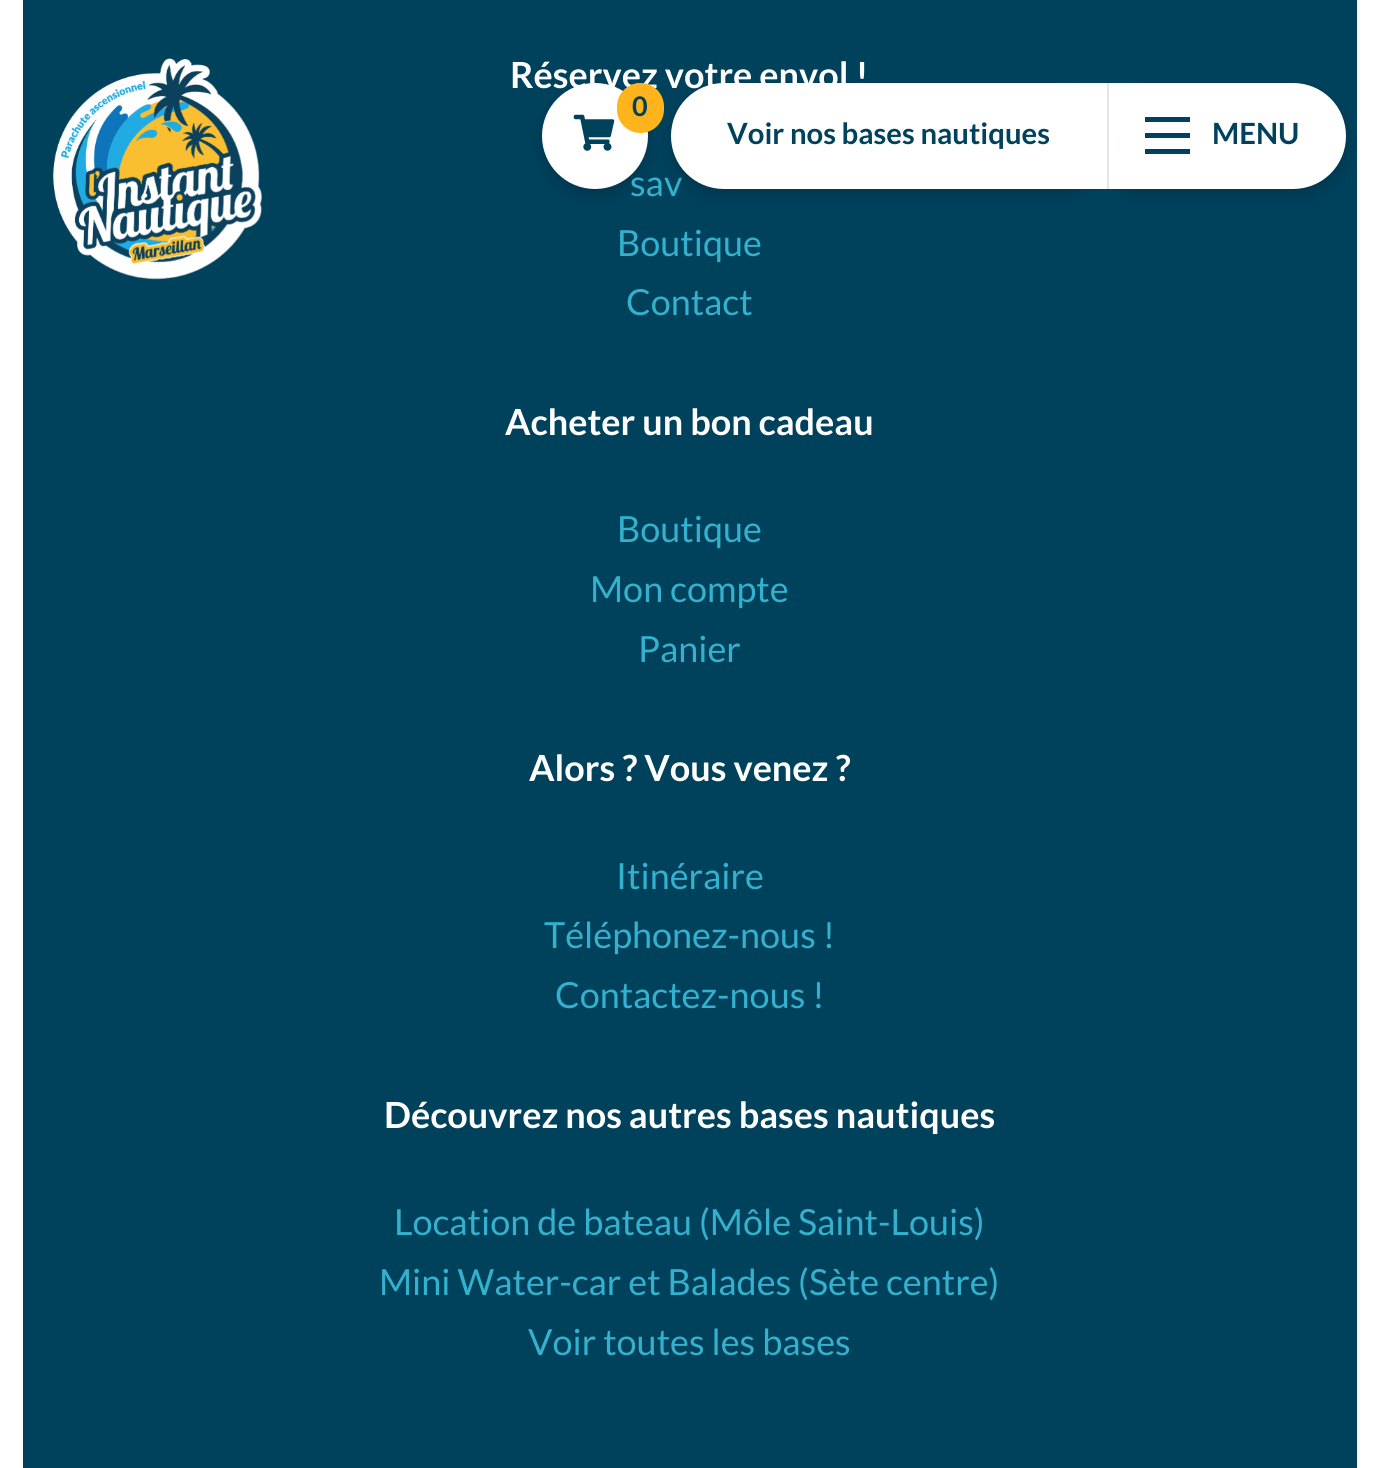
import math
import cairo


def use_color(cr, r, g, b):
  cr.set_source_rgb(r / 255, g / 255, b / 255)

def text(cr, x, y, s, family, size, color, bold=False, italic=False):
  cr.select_font_face(family, cairo.FONT_SLANT_ITALIC if italic else cairo.FONT_SLANT_NORMAL, cairo.FONT_WEIGHT_BOLD if bold else cairo.FONT_WEIGHT_NORMAL)
  cr.set_font_size(size)
  use_color(cr, *color)
  cr.move_to(x, y)
  cr.show_text(s)

def box(cr, x, y, w, h, *color):
  use_color(cr, *color)
  cr.rectangle(x, y, w, h)
  cr.fill()

def round_rect(cr, x, y, w, h, r):
  cr.new_sub_path()
  for i, (u, v) in enumerate([(x + w - r, y + h - r), (x + r, y + h - r), (x + r, y + r), (x + w - r, y + r)]):
    cr.arc(u, v, r, i * math.pi / 2, (i + 1) * math.pi / 2)
  cr.close_path()

def shadow(cr, x, y, w, h, r, blur, alpha):
  cr.push_group_with_content(cairo.CONTENT_ALPHA)
  cr.set_operator(cairo.OPERATOR_SOURCE)
  for i in range(15, -16, -2):
    e = blur * i / 6
    if min(w, h) + 2 * e > 0:
      cr.set_source_rgba(0, 0, 0, alpha * math.erfc((i - 1) / 8.5) / 2)
      round_rect(cr, x - e, y - e, w + 2 * e, h + 2 * e, max(0, min(r + e + blur * .6, min(w, h) / 2 + e)))
      cr.fill()
  cr.mask(cr.pop_group())

def picture(cr, path, x, y, w, h):
  cr.save()
  cr.set_source_surface(cairo.ImageSurface.create_from_png(path), x, y)
  cr.rectangle(x, y, w, h)
  cr.fill()
  cr.restore()

def draw(cr):
  use_color(cr, 255, 255, 255)
  cr.paint()
  box(cr, 23, 0, 1334, 1468, 0, 65, 92)
  picture(cr, "img_01.png", 53, 58, 209, 222)
  use_color(cr, 0, 0, 0)
  shadow(cr, 542, 90, 106, 106, 53, 7, 0.16)
  shadow(cr, 1098, 90, 248, 106, 53, 7, 0.16)
  use_color(cr, 255, 255, 255)
  cr.new_path()
  cr.move_to(1098, 83)
  cr.line_to(1293, 83)
  cr.curve_to(1322.5, 83, 1346, 106.5, 1346, 136)
  cr.curve_to(1346, 165.5, 1322.5, 189, 1293, 189)
  cr.line_to(1098, 189)
  cr.close_path()
  cr.fill()
  box(cr, 1145, 117, 45, 5, 0, 65, 92)
  box(cr, 1145, 133, 45, 5, 0, 65, 92)
  box(cr, 1145, 149, 45, 5, 0, 65, 92)
  text(cr, 510, 88, "Réservez votre envol !", "Lato", 36, (255, 255, 255), bold=True)
  text(cr, 630, 196, "sav", "Lato", 36, (52, 177, 206))
  text(cr, 617, 256, "Boutique", "Lato", 36, (52, 177, 206))
  text(cr, 626, 315, "Contact", "Lato", 36, (52, 177, 206))
  text(cr, 505, 435, "Acheter un bon cadeau", "Lato", 36, (255, 255, 255), bold=True)
  text(cr, 617, 542, "Boutique", "Lato", 36, (52, 177, 206))
  text(cr, 590, 602, "Mon compte", "Lato", 36, (52, 177, 206))
  text(cr, 638, 662, "Panier", "Lato", 36, (52, 177, 206))
  text(cr, 529, 781, "Alors ? Vous venez ?", "Lato", 36, (255, 255, 255), bold=True)
  text(cr, 616, 889, "Itinéraire", "Lato", 36, (52, 177, 206))
  text(cr, 544, 948, "Téléphonez-nous !", "Lato", 36, (52, 177, 206))
  text(cr, 555, 1008, "Contactez-nous !", "Lato", 36, (52, 177, 206))
  text(cr, 384, 1128, "Découvrez nos autres bases nautiques", "Lato", 36, (255, 255, 255), bold=True)
  text(cr, 394, 1235, "Location de bateau (Môle Saint-Louis)", "Lato", 36, (52, 177, 206))
  text(cr, 379, 1295, "Mini Water-car et Balades (Sète centre)", "Lato", 36, (52, 177, 206))
  text(cr, 528, 1355, "Voir toutes les bases", "Lato", 36, (52, 177, 206))
  use_color(cr, 255, 255, 255)
  cr.new_path()
  cr.arc(595, 136, 53, 0, 2 * math.pi)
  cr.fill()
  use_color(cr, 255, 179, 29)
  round_rect(cr, 617, 83, 47, 50, 23.5)
  cr.fill()
  text(cr, 632, 116, "0", "Lato", 27, (0, 65, 92), bold=True)
  picture(cr, "img_02.png", 573, 114, 42, 37)
  use_color(cr, 0, 0, 0)
  shadow(cr, 671, 90, 436, 106, 53, 7, 0.16)
  use_color(cr, 255, 255, 255)
  cr.new_path()
  cr.move_to(724, 83)
  cr.line_to(1107, 83)
  cr.line_to(1107, 189)
  cr.line_to(724, 189)
  cr.curve_to(694.5, 189, 671, 165.5, 671, 136)
  cr.curve_to(671, 106.5, 694.5, 83, 724, 83)
  cr.close_path()
  cr.fill()
  text(cr, 727, 144, "Voir nos bases nautiques", "Lato", 29.25, (0, 65, 92), bold=True)
  box(cr, 1109, 113, 8, 60, 255, 255, 255)
  box(cr, 1107, 83, 2, 106, 230, 230, 230)
  text(cr, 1212, 144, "MENU", "Lato", 29.25, (0, 65, 92), bold=True)


surface = cairo.ImageSurface(cairo.FORMAT_RGB24, 1378, 1468)
cr = cairo.Context(surface)
options = cairo.FontOptions()
options.set_hint_metrics(cairo.HINT_METRICS_OFF)
options.set_hint_style(cairo.HINT_STYLE_NONE)
cr.set_font_options(options)
cr.set_miter_limit(4)
draw(cr)
surface.write_to_png("out.png")
